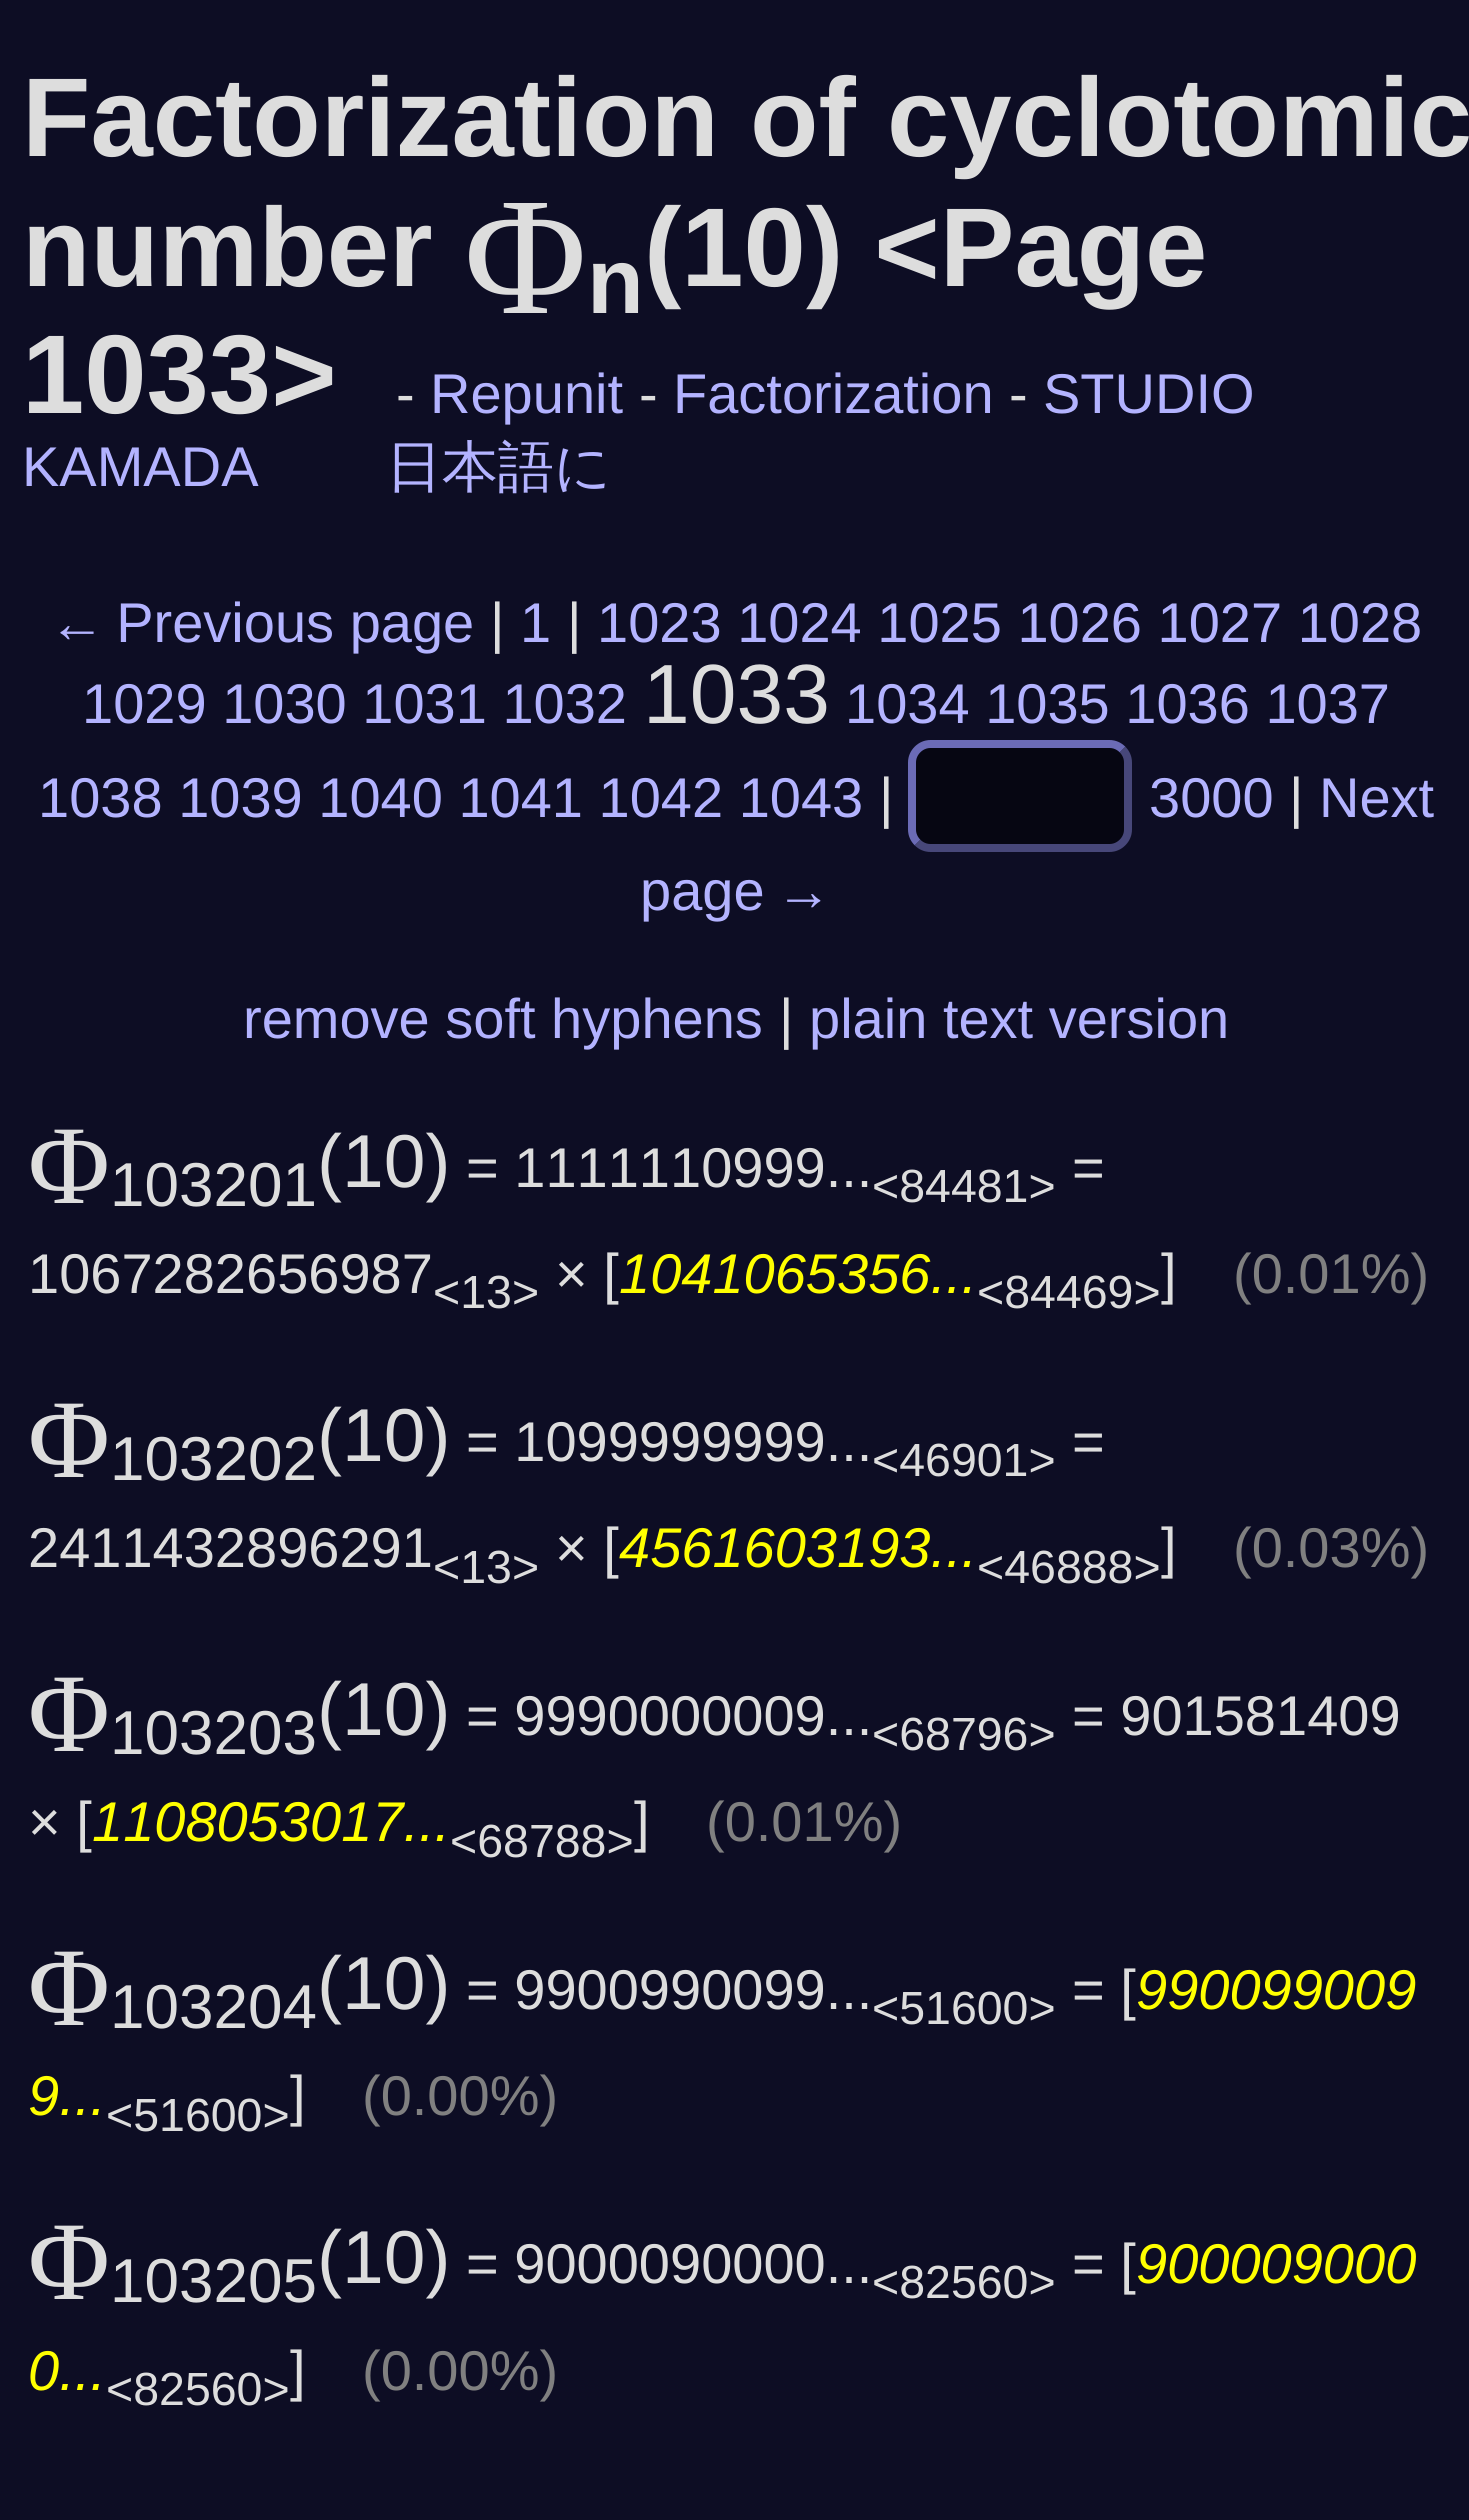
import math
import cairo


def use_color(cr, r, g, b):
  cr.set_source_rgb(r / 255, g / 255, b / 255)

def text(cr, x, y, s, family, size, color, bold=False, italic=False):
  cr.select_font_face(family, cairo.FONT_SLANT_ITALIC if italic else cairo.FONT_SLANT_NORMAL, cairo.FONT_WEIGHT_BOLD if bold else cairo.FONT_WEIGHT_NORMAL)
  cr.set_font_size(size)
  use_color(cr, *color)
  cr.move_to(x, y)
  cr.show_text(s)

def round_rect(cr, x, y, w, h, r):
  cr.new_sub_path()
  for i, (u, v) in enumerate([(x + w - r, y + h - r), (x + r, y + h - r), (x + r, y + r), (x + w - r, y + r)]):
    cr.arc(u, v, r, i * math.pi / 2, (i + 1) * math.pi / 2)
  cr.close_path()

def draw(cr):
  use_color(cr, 13, 13, 36)
  cr.paint()
  use_color(cr, 6, 6, 18)
  round_rect(cr, 908, 740, 224, 112, 24)
  cr.fill()
  cr.new_path()
  cr.move_to(1122.5, 749.5)
  cr.curve_to(1126, 753, 1128, 757.5, 1128, 762.5)
  cr.line_to(1128, 829.5)
  cr.curve_to(1128, 834.5, 1126, 839, 1122.5, 842.5)
  cr.curve_to(1119, 846, 1114.5, 848, 1109.5, 848)
  cr.line_to(930.5, 848)
  cr.curve_to(925.5, 848, 921, 846, 917.5, 842.5)
  use_color(cr, 71, 71, 121)
  cr.set_line_width(8)
  cr.stroke()
  cr.new_path()
  cr.move_to(917.5, 842.5)
  cr.curve_to(914, 839, 912, 834.5, 912, 829.5)
  cr.line_to(912, 762.5)
  cr.curve_to(912, 757.5, 914, 753, 917.5, 749.5)
  cr.curve_to(921, 746, 925.5, 744, 930.5, 744)
  cr.line_to(1109.5, 744)
  cr.curve_to(1114.5, 744, 1119, 746, 1122.5, 749.5)
  use_color(cr, 107, 107, 182)
  cr.stroke()
  text(cr, 22, 156, "Factorization of cyclotomic", "Liberation Sans", 112, (221, 221, 221), bold=True)
  text(cr, 22, 286, "number", "Liberation Sans", 112, (221, 221, 221), bold=True)
  text(cr, 464, 313, "Φ", "Liberation Serif", 168, (221, 221, 221))
  text(cr, 587, 313, "n", "Liberation Sans", 93, (221, 221, 221), bold=True)
  text(cr, 644, 286, "(10) <Page", "Liberation Sans", 112, (221, 221, 221), bold=True)
  text(cr, 22, 413, "1033>", "Liberation Sans", 112, (221, 221, 221), bold=True)
  text(cr, 396, 413, "-", "Liberation Sans", 56, (221, 221, 221))
  text(cr, 430, 413, "Repunit", "Liberation Sans", 56, (179, 179, 255))
  text(cr, 639, 413, "-", "Liberation Sans", 56, (221, 221, 221))
  text(cr, 673, 413, "Factorization", "Liberation Sans", 56, (179, 179, 255))
  text(cr, 1009, 413, "-", "Liberation Sans", 56, (221, 221, 221))
  text(cr, 1043, 413, "STUDIO", "Liberation Sans", 56, (179, 179, 255))
  text(cr, 22, 486, "KAMADA", "Liberation Sans", 56, (179, 179, 255))
  text(cr, 386, 486, "日本語に", "WenQuanYi Zen Hei Medium", 56, (179, 179, 255))
  text(cr, 49, 642, "← Previous page", "Liberation Sans", 56, (179, 179, 255))
  text(cr, 490, 642, "|", "Liberation Sans", 56, (221, 221, 221))
  text(cr, 520, 642, "1", "Liberation Sans", 56, (179, 179, 255))
  text(cr, 567, 642, "|", "Liberation Sans", 56, (221, 221, 221))
  text(cr, 597, 642, "1023 1024 1025 1026 1027 1028", "Liberation Sans", 56, (179, 179, 255))
  text(cr, 82, 723, "1029 1030 1031 1032", "Liberation Sans", 56, (179, 179, 255))
  text(cr, 643, 723, "1033", "Liberation Sans", 84, (221, 221, 221))
  text(cr, 845, 723, "1034 1035 1036 1037", "Liberation Sans", 56, (179, 179, 255))
  text(cr, 38, 817, "1038 1039 1040 1041 1042 1043", "Liberation Sans", 56, (179, 179, 255))
  text(cr, 879, 817, "|", "Liberation Sans", 56, (221, 221, 221))
  text(cr, 1149, 817, "3000", "Liberation Sans", 56, (179, 179, 255))
  text(cr, 1289, 817, "|", "Liberation Sans", 56, (221, 221, 221))
  text(cr, 1319, 817, "Next", "Liberation Sans", 56, (179, 179, 255))
  text(cr, 640, 910, "page →", "Liberation Sans", 56, (179, 179, 255))
  text(cr, 243, 1038, "remove soft hyphens", "Liberation Sans", 56, (179, 179, 255))
  text(cr, 779, 1038, "|", "Liberation Sans", 56, (221, 221, 221))
  text(cr, 809, 1038, "plain text version", "Liberation Sans", 56, (179, 179, 255))
  text(cr, 28, 1203, "Φ", "Liberation Serif", 112, (221, 221, 221))
  text(cr, 110, 1206, "103201", "Liberation Sans", 62, (221, 221, 221))
  text(cr, 317, 1187, "(10)", "Liberation Sans", 75, (221, 221, 221))
  text(cr, 466, 1187, "= 1111110999...", "Liberation Sans", 56, (221, 221, 221))
  text(cr, 872, 1202, "<84481>", "Liberation Sans", 46.5, (221, 221, 221))
  text(cr, 1072, 1187, "=", "Liberation Sans", 56, (221, 221, 221))
  text(cr, 28, 1293, "1067282656987", "Liberation Sans", 56, (221, 221, 221))
  text(cr, 433, 1308, "<13>", "Liberation Sans", 46.5, (221, 221, 221))
  text(cr, 555, 1293, "× [", "Liberation Sans", 56, (221, 221, 221))
  text(cr, 619, 1293, "1041065356...", "Liberation Sans", 56, (255, 255, 0), italic=True)
  text(cr, 977, 1308, "<84469>", "Liberation Sans", 46.5, (221, 221, 221))
  text(cr, 1161, 1293, "]", "Liberation Sans", 56, (221, 221, 221))
  text(cr, 1233, 1293, "(0.01%)", "Liberation Sans", 56, (128, 128, 128))
  text(cr, 28, 1477, "Φ", "Liberation Serif", 112, (221, 221, 221))
  text(cr, 110, 1480, "103202", "Liberation Sans", 62, (221, 221, 221))
  text(cr, 317, 1461, "(10)", "Liberation Sans", 75, (221, 221, 221))
  text(cr, 466, 1461, "= 1099999999...", "Liberation Sans", 56, (221, 221, 221))
  text(cr, 872, 1476, "<46901>", "Liberation Sans", 46.5, (221, 221, 221))
  text(cr, 1072, 1461, "=", "Liberation Sans", 56, (221, 221, 221))
  text(cr, 28, 1567, "2411432896291", "Liberation Sans", 56, (221, 221, 221))
  text(cr, 433, 1583, "<13>", "Liberation Sans", 46.5, (221, 221, 221))
  text(cr, 555, 1567, "× [", "Liberation Sans", 56, (221, 221, 221))
  text(cr, 619, 1567, "4561603193...", "Liberation Sans", 56, (255, 255, 0), italic=True)
  text(cr, 977, 1583, "<46888>", "Liberation Sans", 46.5, (221, 221, 221))
  text(cr, 1161, 1567, "]", "Liberation Sans", 56, (221, 221, 221))
  text(cr, 1233, 1567, "(0.03%)", "Liberation Sans", 56, (128, 128, 128))
  text(cr, 28, 1751, "Φ", "Liberation Serif", 112, (221, 221, 221))
  text(cr, 110, 1754, "103203", "Liberation Sans", 62, (221, 221, 221))
  text(cr, 317, 1735, "(10)", "Liberation Sans", 75, (221, 221, 221))
  text(cr, 466, 1735, "= 9990000009...", "Liberation Sans", 56, (221, 221, 221))
  text(cr, 872, 1750, "<68796>", "Liberation Sans", 46.5, (221, 221, 221))
  text(cr, 1072, 1735, "= 901581409", "Liberation Sans", 56, (221, 221, 221))
  text(cr, 28, 1841, "× [", "Liberation Sans", 56, (221, 221, 221))
  text(cr, 92, 1841, "1108053017...", "Liberation Sans", 56, (255, 255, 0), italic=True)
  text(cr, 450, 1857, "<68788>", "Liberation Sans", 46.5, (221, 221, 221))
  text(cr, 634, 1841, "]", "Liberation Sans", 56, (221, 221, 221))
  text(cr, 706, 1841, "(0.01%)", "Liberation Sans", 56, (128, 128, 128))
  text(cr, 28, 2025, "Φ", "Liberation Serif", 112, (221, 221, 221))
  text(cr, 110, 2028, "103204", "Liberation Sans", 62, (221, 221, 221))
  text(cr, 317, 2009, "(10)", "Liberation Sans", 75, (221, 221, 221))
  text(cr, 466, 2009, "= 9900990099...", "Liberation Sans", 56, (221, 221, 221))
  text(cr, 872, 2024, "<51600>", "Liberation Sans", 46.5, (221, 221, 221))
  text(cr, 1072, 2009, "= [", "Liberation Sans", 56, (221, 221, 221))
  text(cr, 1136, 2009, "990099009", "Liberation Sans", 56, (255, 255, 0), italic=True)
  text(cr, 28, 2115, "9...", "Liberation Sans", 56, (255, 255, 0), italic=True)
  text(cr, 106, 2131, "<51600>", "Liberation Sans", 46.5, (221, 221, 221))
  text(cr, 290, 2115, "]", "Liberation Sans", 56, (221, 221, 221))
  text(cr, 362, 2115, "(0.00%)", "Liberation Sans", 56, (128, 128, 128))
  text(cr, 28, 2299, "Φ", "Liberation Serif", 112, (221, 221, 221))
  text(cr, 110, 2302, "103205", "Liberation Sans", 62, (221, 221, 221))
  text(cr, 317, 2283, "(10)", "Liberation Sans", 75, (221, 221, 221))
  text(cr, 466, 2283, "= 9000090000...", "Liberation Sans", 56, (221, 221, 221))
  text(cr, 872, 2298, "<82560>", "Liberation Sans", 46.5, (221, 221, 221))
  text(cr, 1072, 2283, "= [", "Liberation Sans", 56, (221, 221, 221))
  text(cr, 1136, 2283, "900009000", "Liberation Sans", 56, (255, 255, 0), italic=True)
  text(cr, 28, 2390, "0...", "Liberation Sans", 56, (255, 255, 0), italic=True)
  text(cr, 106, 2405, "<82560>", "Liberation Sans", 46.5, (221, 221, 221))
  text(cr, 290, 2390, "]", "Liberation Sans", 56, (221, 221, 221))
  text(cr, 362, 2390, "(0.00%)", "Liberation Sans", 56, (128, 128, 128))


surface = cairo.ImageSurface(cairo.FORMAT_RGB24, 1469, 2520)
cr = cairo.Context(surface)
options = cairo.FontOptions()
options.set_hint_metrics(cairo.HINT_METRICS_OFF)
options.set_hint_style(cairo.HINT_STYLE_NONE)
cr.set_font_options(options)
cr.set_miter_limit(4)
draw(cr)
surface.write_to_png("out.png")
